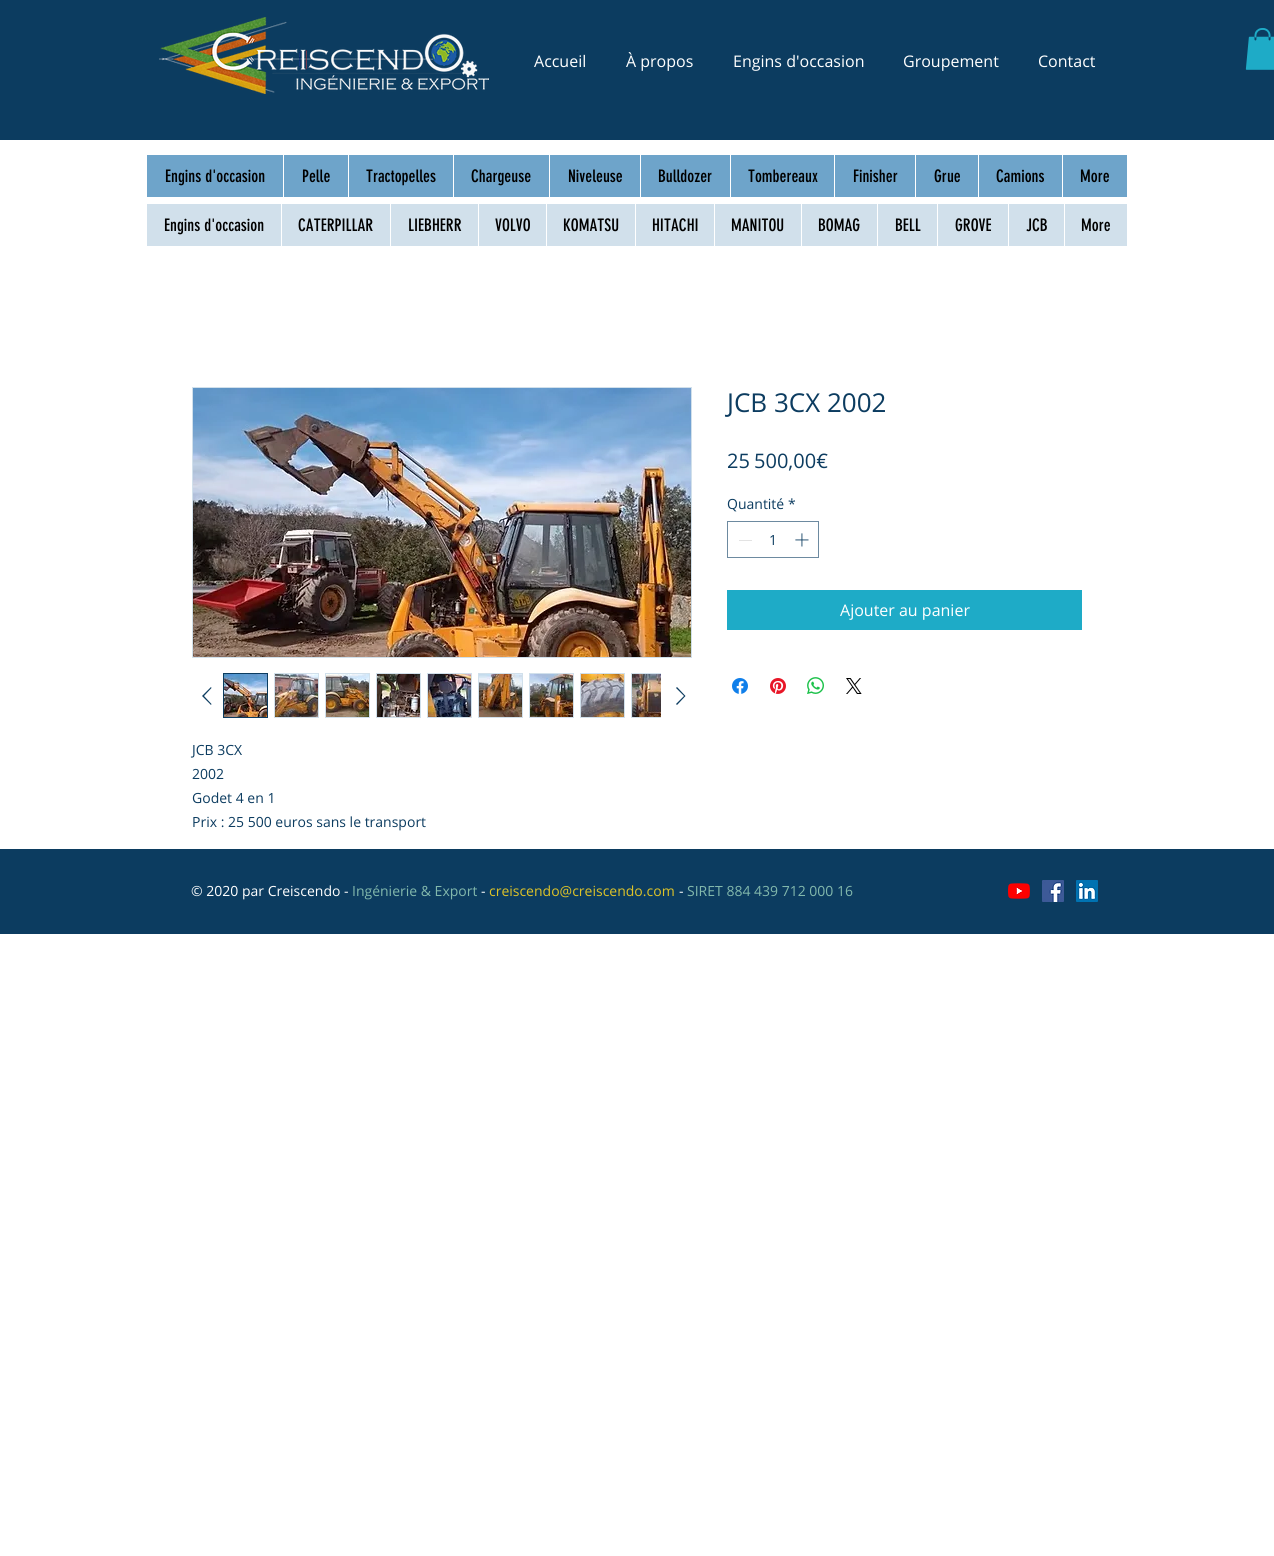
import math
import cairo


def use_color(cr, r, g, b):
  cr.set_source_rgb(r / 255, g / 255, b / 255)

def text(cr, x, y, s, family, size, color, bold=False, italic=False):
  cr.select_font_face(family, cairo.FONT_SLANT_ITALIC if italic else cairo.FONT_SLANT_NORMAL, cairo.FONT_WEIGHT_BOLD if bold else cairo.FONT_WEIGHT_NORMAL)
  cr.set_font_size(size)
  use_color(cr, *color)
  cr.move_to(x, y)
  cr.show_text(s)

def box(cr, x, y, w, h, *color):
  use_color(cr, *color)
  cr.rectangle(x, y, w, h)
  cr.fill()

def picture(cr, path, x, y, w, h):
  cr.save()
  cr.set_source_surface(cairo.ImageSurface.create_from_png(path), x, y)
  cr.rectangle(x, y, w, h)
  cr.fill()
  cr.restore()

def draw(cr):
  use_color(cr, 255, 255, 255)
  cr.paint()
  box(cr, 0, 0, 1274, 140, 12, 60, 96)
  picture(cr, "img_01.png", 159, 17, 330, 77)
  picture(cr, "img_02.png", 1245, 28, 29, 42)
  box(cr, 147, 155, 980, 42, 110, 164, 202)
  box(cr, 283, 155, 1, 42, 255, 255, 255)
  box(cr, 348, 155, 1, 42, 255, 255, 255)
  box(cr, 453, 155, 1, 42, 255, 255, 255)
  box(cr, 549, 155, 1, 42, 255, 255, 255)
  box(cr, 640, 155, 1, 42, 255, 255, 255)
  box(cr, 730, 155, 1, 42, 255, 255, 255)
  box(cr, 834, 155, 1, 42, 255, 255, 255)
  box(cr, 915, 155, 1, 42, 255, 255, 255)
  box(cr, 978, 155, 1, 42, 255, 255, 255)
  box(cr, 1062, 155, 1, 42, 255, 255, 255)
  box(cr, 147, 204, 980, 42, 209, 224, 235)
  box(cr, 281, 204, 1, 42, 255, 255, 255)
  box(cr, 390, 204, 1, 42, 255, 255, 255)
  box(cr, 478, 204, 1, 42, 255, 255, 255)
  box(cr, 546, 204, 1, 42, 255, 255, 255)
  box(cr, 635, 204, 1, 42, 255, 255, 255)
  box(cr, 714, 204, 1, 42, 255, 255, 255)
  box(cr, 801, 204, 1, 42, 255, 255, 255)
  box(cr, 877, 204, 1, 42, 255, 255, 255)
  box(cr, 937, 204, 1, 42, 255, 255, 255)
  box(cr, 1008, 204, 1, 42, 255, 255, 255)
  box(cr, 1064, 204, 1, 42, 255, 255, 255)
  cr.rectangle(727.5, 521.5, 91, 36)
  use_color(cr, 109, 138, 160)
  cr.set_line_width(1)
  cr.stroke()
  box(cr, 739, 540, 13, 1, 227, 227, 227)
  picture(cr, "img_03.png", 795, 533, 14, 14)
  box(cr, 727, 590, 355, 40, 30, 171, 199)
  picture(cr, "img_04.png", 732, 678, 16, 16)
  picture(cr, "img_05.png", 770, 678, 16, 16)
  picture(cr, "img_06.png", 807, 677, 17, 17)
  picture(cr, "img_07.png", 846, 678, 16, 16)
  cr.rectangle(192.5, 387.5, 499, 270)
  use_color(cr, 209, 224, 235)
  cr.stroke()
  picture(cr, "img_08.png", 193, 388, 498, 269)
  use_color(cr, 12, 60, 96)
  cr.set_fill_rule(cairo.FILL_RULE_EVEN_ODD)
  cr.new_path()
  cr.move_to(211, 687)
  cr.line_to(211.5, 688)
  cr.line_to(204, 696)
  cr.line_to(211.5, 704)
  cr.line_to(211, 705)
  cr.line_to(202, 696)
  cr.close_path()
  cr.fill()
  cr.rectangle(223.5, 673.5, 44, 44)
  cr.stroke()
  picture(cr, "img_09.png", 224, 674, 43, 43)
  box(cr, 274, 673, 45, 45, 209, 224, 235)
  picture(cr, "img_10.png", 275, 674, 43, 43)
  box(cr, 325, 673, 45, 45, 209, 224, 235)
  picture(cr, "img_11.png", 326, 674, 43, 43)
  box(cr, 376, 673, 45, 45, 209, 224, 235)
  picture(cr, "img_12.png", 377, 674, 43, 43)
  box(cr, 427, 673, 45, 45, 209, 224, 235)
  picture(cr, "img_13.png", 428, 674, 43, 43)
  box(cr, 478, 673, 45, 45, 209, 224, 235)
  picture(cr, "img_14.png", 479, 674, 43, 43)
  box(cr, 529, 673, 45, 45, 209, 224, 235)
  picture(cr, "img_15.png", 530, 674, 43, 43)
  box(cr, 580, 673, 45, 45, 209, 224, 235)
  picture(cr, "img_16.png", 581, 674, 43, 43)
  box(cr, 631, 673, 30, 45, 209, 224, 235)
  picture(cr, "img_17.png", 632, 674, 29, 43)
  use_color(cr, 12, 60, 96)
  cr.new_path()
  cr.move_to(677, 687)
  cr.line_to(685.5, 696)
  cr.line_to(677, 705)
  cr.line_to(676, 704)
  cr.line_to(684, 696)
  cr.line_to(676, 688)
  cr.close_path()
  cr.fill()
  box(cr, 0, 849, 1274, 85, 12, 60, 96)
  picture(cr, "img_18.png", 1008, 883, 22, 16)
  picture(cr, "img_19.png", 1042, 880, 22, 22)
  picture(cr, "img_20.png", 1076, 880, 22, 22)
  text(cr, 534, 67, "Accueil", "Open Sans", 16, (255, 255, 255))
  text(cr, 626, 67, "À propos", "Open Sans", 16, (255, 255, 255))
  text(cr, 733, 67, "Engins d'occasion", "Open Sans", 16, (255, 255, 255))
  text(cr, 903, 67, "Groupement", "Open Sans", 16, (255, 255, 255))
  text(cr, 1038, 67, "Contact", "Open Sans", 16, (255, 255, 255))
  text(cr, 165, 182, "Engins d'occasion", "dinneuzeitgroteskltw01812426", 17, (0, 0, 0))
  text(cr, 302, 182, "Pelle", "dinneuzeitgroteskltw01812426", 17, (0, 0, 0))
  text(cr, 366, 182, "Tractopelles", "dinneuzeitgroteskltw01812426", 17, (0, 0, 0))
  text(cr, 471, 182, "Chargeuse", "dinneuzeitgroteskltw01812426", 17, (0, 0, 0))
  text(cr, 568, 182, "Niveleuse", "dinneuzeitgroteskltw01812426", 17, (0, 0, 0))
  text(cr, 658, 182, "Bulldozer", "dinneuzeitgroteskltw01812426", 17, (0, 0, 0))
  text(cr, 748, 182, "Tombereaux", "dinneuzeitgroteskltw01812426", 17, (0, 0, 0))
  text(cr, 853, 182, "Finisher", "dinneuzeitgroteskltw01812426", 17, (0, 0, 0))
  text(cr, 934, 182, "Grue", "dinneuzeitgroteskltw01812426", 17, (0, 0, 0))
  text(cr, 996, 182, "Camions", "dinneuzeitgroteskltw01812426", 17, (0, 0, 0))
  text(cr, 1080, 182, "More", "dinneuzeitgroteskltw01812426", 17, (0, 0, 0))
  text(cr, 164, 231, "Engins d'occasion", "dinneuzeitgroteskltw01812426", 17, (0, 0, 0))
  text(cr, 298, 231, "CATERPILLAR", "dinneuzeitgroteskltw01812426", 17, (0, 0, 0))
  text(cr, 408, 231, "LIEBHERR", "dinneuzeitgroteskltw01812426", 17, (0, 0, 0))
  text(cr, 495, 231, "VOLVO", "dinneuzeitgroteskltw01812426", 17, (0, 0, 0))
  text(cr, 563, 231, "KOMATSU", "dinneuzeitgroteskltw01812426", 17, (0, 0, 0))
  text(cr, 652, 231, "HITACHI", "dinneuzeitgroteskltw01812426", 17, (0, 0, 0))
  text(cr, 731, 231, "MANITOU", "dinneuzeitgroteskltw01812426", 17, (0, 0, 0))
  text(cr, 818, 231, "BOMAG", "dinneuzeitgroteskltw01812426", 17, (0, 0, 0))
  text(cr, 895, 231, "BELL", "dinneuzeitgroteskltw01812426", 17, (0, 0, 0))
  text(cr, 955, 231, "GROVE", "dinneuzeitgroteskltw01812426", 17, (0, 0, 0))
  text(cr, 1026, 231, "JCB", "dinneuzeitgroteskltw01812426", 17, (0, 0, 0))
  text(cr, 1081, 231, "More", "dinneuzeitgroteskltw01812426", 17, (0, 0, 0))
  text(cr, 727, 412, "JCB 3CX 2002", "Open Sans", 26, (12, 60, 96))
  text(cr, 727, 468, "25 500,00€", "Open Sans", 20, (12, 60, 96))
  text(cr, 727, 509, "Quantité", "Open Sans", 14, (12, 60, 96))
  text(cr, 788, 509, "*", "Open Sans", 14, (12, 60, 96))
  text(cr, 769, 545, "1", "Open Sans", 14, (12, 60, 96))
  text(cr, 840, 616, "Ajouter au panier", "Open Sans", 16, (255, 255, 255))
  text(cr, 192, 755, "JCB 3CX", "Open Sans", 14, (12, 60, 96))
  text(cr, 192, 779, "2002", "Open Sans", 14, (12, 60, 96))
  text(cr, 192, 803, "Godet 4 en 1", "Open Sans", 14, (12, 60, 96))
  text(cr, 192, 827, "Prix : 25 500 euros sans le transport", "Open Sans", 14, (12, 60, 96))
  text(cr, 191, 896, "© 2020 par Creiscendo -", "Open Sans", 14, (255, 255, 255))
  text(cr, 352, 896, "Ingénierie & Export", "Open Sans", 14, (130, 184, 172))
  text(cr, 481, 896, "-", "Open Sans", 14, (255, 255, 255))
  text(cr, 489, 896, "creiscendo@creiscendo.com", "Open Sans", 14, (222, 195, 40))
  text(cr, 679, 896, "-", "Open Sans", 14, (255, 255, 255))
  text(cr, 687, 896, "SIRET 884 439 712 000 16", "Open Sans", 14, (130, 184, 172))


surface = cairo.ImageSurface(cairo.FORMAT_RGB24, 1274, 1556)
cr = cairo.Context(surface)
options = cairo.FontOptions()
options.set_hint_metrics(cairo.HINT_METRICS_OFF)
options.set_hint_style(cairo.HINT_STYLE_NONE)
cr.set_font_options(options)
cr.set_miter_limit(4)
draw(cr)
surface.write_to_png("out.png")
